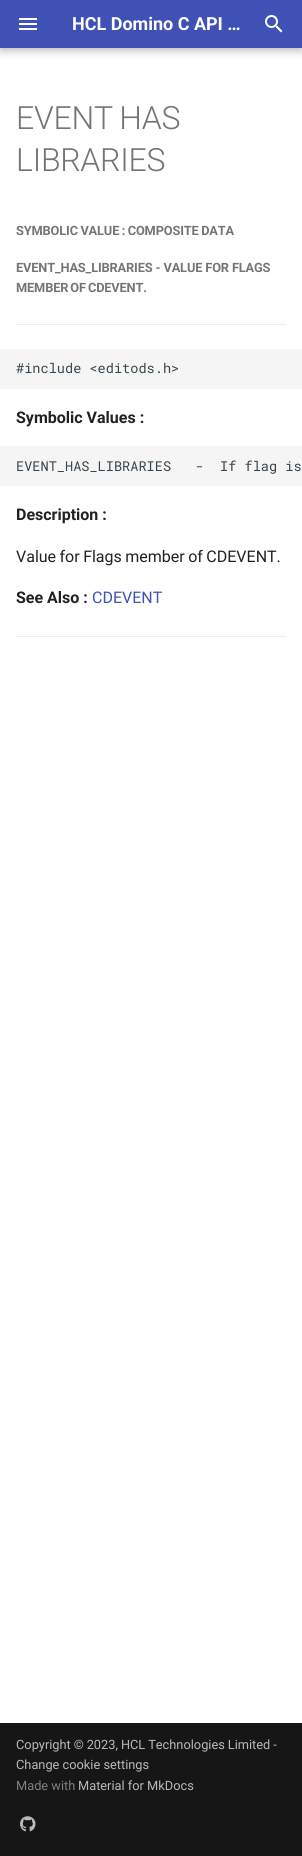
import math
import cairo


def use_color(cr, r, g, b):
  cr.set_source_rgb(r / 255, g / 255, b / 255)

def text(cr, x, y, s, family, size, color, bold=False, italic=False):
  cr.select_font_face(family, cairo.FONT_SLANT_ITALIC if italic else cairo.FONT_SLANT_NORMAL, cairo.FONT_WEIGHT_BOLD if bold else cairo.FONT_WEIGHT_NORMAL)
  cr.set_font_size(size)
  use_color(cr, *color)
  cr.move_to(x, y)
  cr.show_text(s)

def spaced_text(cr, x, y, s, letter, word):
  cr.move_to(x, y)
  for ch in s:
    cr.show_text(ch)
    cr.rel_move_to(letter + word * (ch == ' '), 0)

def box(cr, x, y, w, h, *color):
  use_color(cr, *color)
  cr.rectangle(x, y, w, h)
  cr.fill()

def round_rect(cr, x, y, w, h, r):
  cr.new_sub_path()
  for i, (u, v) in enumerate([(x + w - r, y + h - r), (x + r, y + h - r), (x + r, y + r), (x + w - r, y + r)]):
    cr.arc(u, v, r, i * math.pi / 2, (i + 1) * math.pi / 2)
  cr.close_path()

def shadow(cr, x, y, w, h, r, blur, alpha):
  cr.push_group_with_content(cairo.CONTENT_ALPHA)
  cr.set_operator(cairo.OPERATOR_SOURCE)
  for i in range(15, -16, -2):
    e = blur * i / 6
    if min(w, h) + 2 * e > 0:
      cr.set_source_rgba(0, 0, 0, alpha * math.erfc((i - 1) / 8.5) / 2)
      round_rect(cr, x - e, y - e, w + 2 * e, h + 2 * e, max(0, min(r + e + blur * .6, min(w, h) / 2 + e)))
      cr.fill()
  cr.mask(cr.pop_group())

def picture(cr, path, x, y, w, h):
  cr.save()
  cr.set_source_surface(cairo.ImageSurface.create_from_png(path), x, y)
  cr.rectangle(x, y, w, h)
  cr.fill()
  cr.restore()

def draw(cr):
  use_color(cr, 255, 255, 255)
  cr.paint()
  use_color(cr, 0, 0, 0)
  shadow(cr, 0, 4, 302, 48, 0, 4, 0.2)
  shadow(cr, 0, 0, 302, 48, 0, 2, 0.1)
  box(cr, 0, 0, 302, 48, 64, 81, 181)
  picture(cr, "img_01.png", 19, 18, 18, 12)
  picture(cr, "img_02.png", 265, 15, 18, 18)
  box(cr, 16, 324, 270, 1, 237, 237, 237)
  box(cr, 0, 349, 302, 40, 245, 245, 245)
  box(cr, 0, 446, 302, 40, 245, 245, 245)
  box(cr, 16, 636, 270, 1, 237, 237, 237)
  box(cr, 0, 1723, 302, 133, 22, 22, 22)
  picture(cr, "img_03.png", 20, 1816, 16, 16)
  text(cr, 72, 30, "HCL Domino C API …", "Roboto", 18, (255, 255, 255), bold=True)
  cr.select_font_face("Roboto Light")
  cr.set_font_size(32)
  use_color(cr, 117, 117, 117)
  spaced_text(cr, 16, 129, "EVENT HAS", -0.25, -1)
  spaced_text(cr, 16, 171, "LIBRARIES", -0.25, 0)
  cr.select_font_face("Roboto", cairo.FONT_SLANT_NORMAL, cairo.FONT_WEIGHT_BOLD)
  cr.set_font_size(12.8)
  spaced_text(cr, 16, 235, "SYMBOLIC VALUE : COMPOSITE DATA", -0.15, -0.5)
  spaced_text(cr, 16, 272, "EVENT_HAS_LIBRARIES - VALUE FOR FLAGS", -0.15, 0)
  spaced_text(cr, 16, 292, "MEMBER OF CDEVENT.", -0.15, -1)
  text(cr, 16, 373, "#include <editods.h>", "Roboto Mono", 13.6, (54, 70, 78))
  text(cr, 16, 423, "Symbolic Values :", "Roboto", 16, (33, 33, 33), bold=True)
  text(cr, 16, 471, "EVENT_HAS_LIBRARIES   -  If flag is", "Roboto Mono", 13.6, (54, 70, 78))
  text(cr, 16, 520, "Description :", "Roboto", 16, (33, 33, 33), bold=True)
  cr.select_font_face("Roboto")
  spaced_text(cr, 16, 562, "Value for Flags member of CDEVENT.", 0, -0.5)
  text(cr, 16, 603, "See Also :", "Roboto", 16, (33, 33, 33), bold=True)
  text(cr, 92, 603, "CDEVENT", "Roboto", 16, (64, 81, 181))
  cr.set_font_size(12.8)
  use_color(cr, 185, 185, 185)
  spaced_text(cr, 16, 1749, "Copyright © 2023, HCL Technologies Limited -", 0, -0.25)
  text(cr, 16, 1769, "Change cookie settings", "Roboto", 12.8, (185, 185, 185))
  text(cr, 16, 1790, "Made with", "Roboto", 12.8, (127, 127, 127))
  text(cr, 78, 1790, "Material for MkDocs", "Roboto", 12.8, (185, 185, 185))


surface = cairo.ImageSurface(cairo.FORMAT_RGB24, 302, 1856)
cr = cairo.Context(surface)
options = cairo.FontOptions()
options.set_hint_metrics(cairo.HINT_METRICS_OFF)
options.set_hint_style(cairo.HINT_STYLE_NONE)
cr.set_font_options(options)
cr.set_miter_limit(4)
draw(cr)
surface.write_to_png("out.png")
